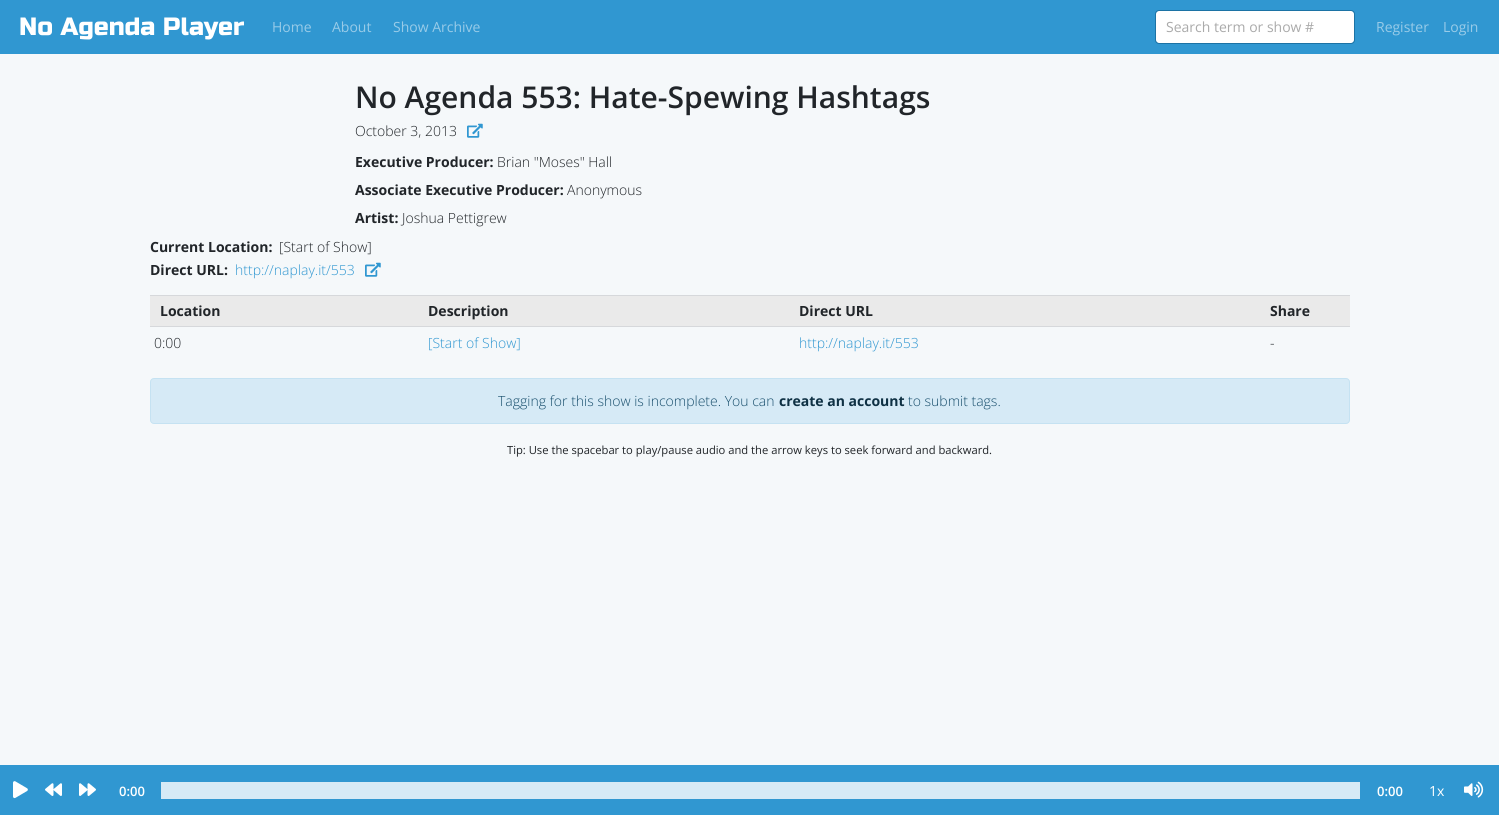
import math
import cairo


def use_color(cr, r, g, b):
  cr.set_source_rgb(r / 255, g / 255, b / 255)

def text(cr, x, y, s, family, size, color, bold=False, italic=False):
  cr.select_font_face(family, cairo.FONT_SLANT_ITALIC if italic else cairo.FONT_SLANT_NORMAL, cairo.FONT_WEIGHT_BOLD if bold else cairo.FONT_WEIGHT_NORMAL)
  cr.set_font_size(size)
  use_color(cr, *color)
  cr.move_to(x, y)
  cr.show_text(s)

def box(cr, x, y, w, h, *color):
  use_color(cr, *color)
  cr.rectangle(x, y, w, h)
  cr.fill()

def round_rect(cr, x, y, w, h, r):
  cr.new_sub_path()
  for i, (u, v) in enumerate([(x + w - r, y + h - r), (x + r, y + h - r), (x + r, y + r), (x + w - r, y + r)]):
    cr.arc(u, v, r, i * math.pi / 2, (i + 1) * math.pi / 2)
  cr.close_path()

def picture(cr, path, x, y, w, h):
  cr.save()
  cr.set_source_surface(cairo.ImageSurface.create_from_png(path), x, y)
  cr.rectangle(x, y, w, h)
  cr.fill()
  cr.restore()

def draw(cr):
  use_color(cr, 245, 248, 250)
  cr.paint()
  box(cr, 0, 0, 1499, 54, 48, 151, 209)
  use_color(cr, 255, 255, 255)
  round_rect(cr, 1156, 11, 198, 32, 2.5)
  cr.fill()
  round_rect(cr, 1155.5, 10.5, 199, 33, 3.5)
  use_color(cr, 28, 115, 165)
  cr.set_line_width(1)
  cr.stroke()
  picture(cr, "img_01.png", 467, 123, 16, 15)
  picture(cr, "img_01.png", 365, 262, 16, 15)
  box(cr, 150, 296, 1200, 30, 234, 234, 234)
  box(cr, 150, 295, 1200, 1, 214, 216, 219)
  box(cr, 150, 326, 1200, 1, 214, 216, 219)
  use_color(cr, 214, 234, 246)
  round_rect(cr, 150.5, 378.5, 1199, 45, 3.5)
  cr.fill_preserve()
  use_color(cr, 197, 226, 242)
  cr.stroke()
  box(cr, 0, 765, 1499, 50, 48, 151, 209)
  picture(cr, "img_02.png", 13, 781, 15, 18)
  picture(cr, "img_03.png", 45, 783, 17, 13)
  picture(cr, "img_04.png", 79, 783, 17, 13)
  box(cr, 161, 782, 1199, 17, 214, 234, 246)
  picture(cr, "img_05.png", 1464, 781, 20, 17)
  text(cr, 19, 35, "No Agenda Player", "Russo One", 25, (255, 255, 255))
  text(cr, 272, 32, "Home", "Open Sans", 14, (152, 203, 232))
  text(cr, 332, 32, "About", "Open Sans", 14, (152, 203, 232))
  text(cr, 393, 32, "Show Archive", "Open Sans", 14, (152, 203, 232))
  text(cr, 1166, 32, "Search term or show #", "Open Sans", 14, (170, 170, 170))
  text(cr, 1376, 32, "Register", "Open Sans", 14, (152, 203, 232))
  text(cr, 1443, 32, "Login", "Open Sans", 14, (152, 203, 232))
  text(cr, 355, 108, "No Agenda 553: Hate-Spewing Hashtags", "Open Sans SemiBold", 30, (33, 37, 41))
  text(cr, 355, 136, "October 3, 2013", "Open Sans Light", 14, (33, 37, 41))
  text(cr, 355, 167, "Executive Producer:", "Open Sans", 14, (33, 37, 41), bold=True)
  text(cr, 497, 167, "Brian \"Moses\" Hall", "Open Sans Light", 14, (33, 37, 41))
  text(cr, 355, 195, "Associate Executive Producer:", "Open Sans", 14, (33, 37, 41), bold=True)
  text(cr, 567, 195, "Anonymous", "Open Sans Light", 14, (33, 37, 41))
  text(cr, 355, 223, "Artist:", "Open Sans", 14, (33, 37, 41), bold=True)
  text(cr, 402, 223, "Joshua Pettigrew", "Open Sans Light", 14, (33, 37, 41))
  text(cr, 150, 252, "Current Location:", "Open Sans", 14, (33, 37, 41), bold=True)
  text(cr, 279, 252, "[Start of Show]", "Open Sans Light", 14, (33, 37, 41))
  text(cr, 150, 275, "Direct URL:", "Open Sans", 14, (33, 37, 41), bold=True)
  text(cr, 235, 275, "http://naplay.it/553", "Open Sans Light", 14, (48, 151, 209))
  text(cr, 160, 316, "Location", "Open Sans", 14, (33, 37, 41), bold=True)
  text(cr, 428, 316, "Description", "Open Sans", 14, (33, 37, 41), bold=True)
  text(cr, 799, 316, "Direct URL", "Open Sans", 14, (33, 37, 41), bold=True)
  text(cr, 1270, 316, "Share", "Open Sans", 14, (33, 37, 41), bold=True)
  text(cr, 154, 348, "0:00", "Open Sans Light", 14, (33, 37, 41))
  text(cr, 428, 348, "[Start of Show]", "Open Sans Light", 14, (48, 151, 209))
  text(cr, 799, 348, "http://naplay.it/553", "Open Sans Light", 14, (48, 151, 209))
  text(cr, 1270, 348, "-", "Open Sans Light", 14, (33, 37, 41))
  text(cr, 498, 406, "Tagging for this show is incomplete. You can", "Open Sans Light", 14, (25, 79, 109))
  text(cr, 779, 406, "create an account", "Open Sans", 14, (15, 49, 68), bold=True)
  text(cr, 908, 406, "to submit tags.", "Open Sans Light", 14, (25, 79, 109))
  text(cr, 507, 454, "Tip: Use the spacebar to play/pause audio and the arrow keys to seek forward and backward.", "Open Sans", 11.2, (33, 37, 41))
  text(cr, 119, 796, "0:00", "Open Sans SemiBold", 13, (255, 255, 255))
  text(cr, 1377, 796, "0:00", "Open Sans SemiBold", 13, (255, 255, 255))
  text(cr, 1429, 796, "1x", "Open Sans", 14, (255, 255, 255))


surface = cairo.ImageSurface(cairo.FORMAT_RGB24, 1499, 815)
cr = cairo.Context(surface)
options = cairo.FontOptions()
options.set_hint_metrics(cairo.HINT_METRICS_OFF)
options.set_hint_style(cairo.HINT_STYLE_NONE)
cr.set_font_options(options)
cr.set_miter_limit(4)
draw(cr)
surface.write_to_png("out.png")
